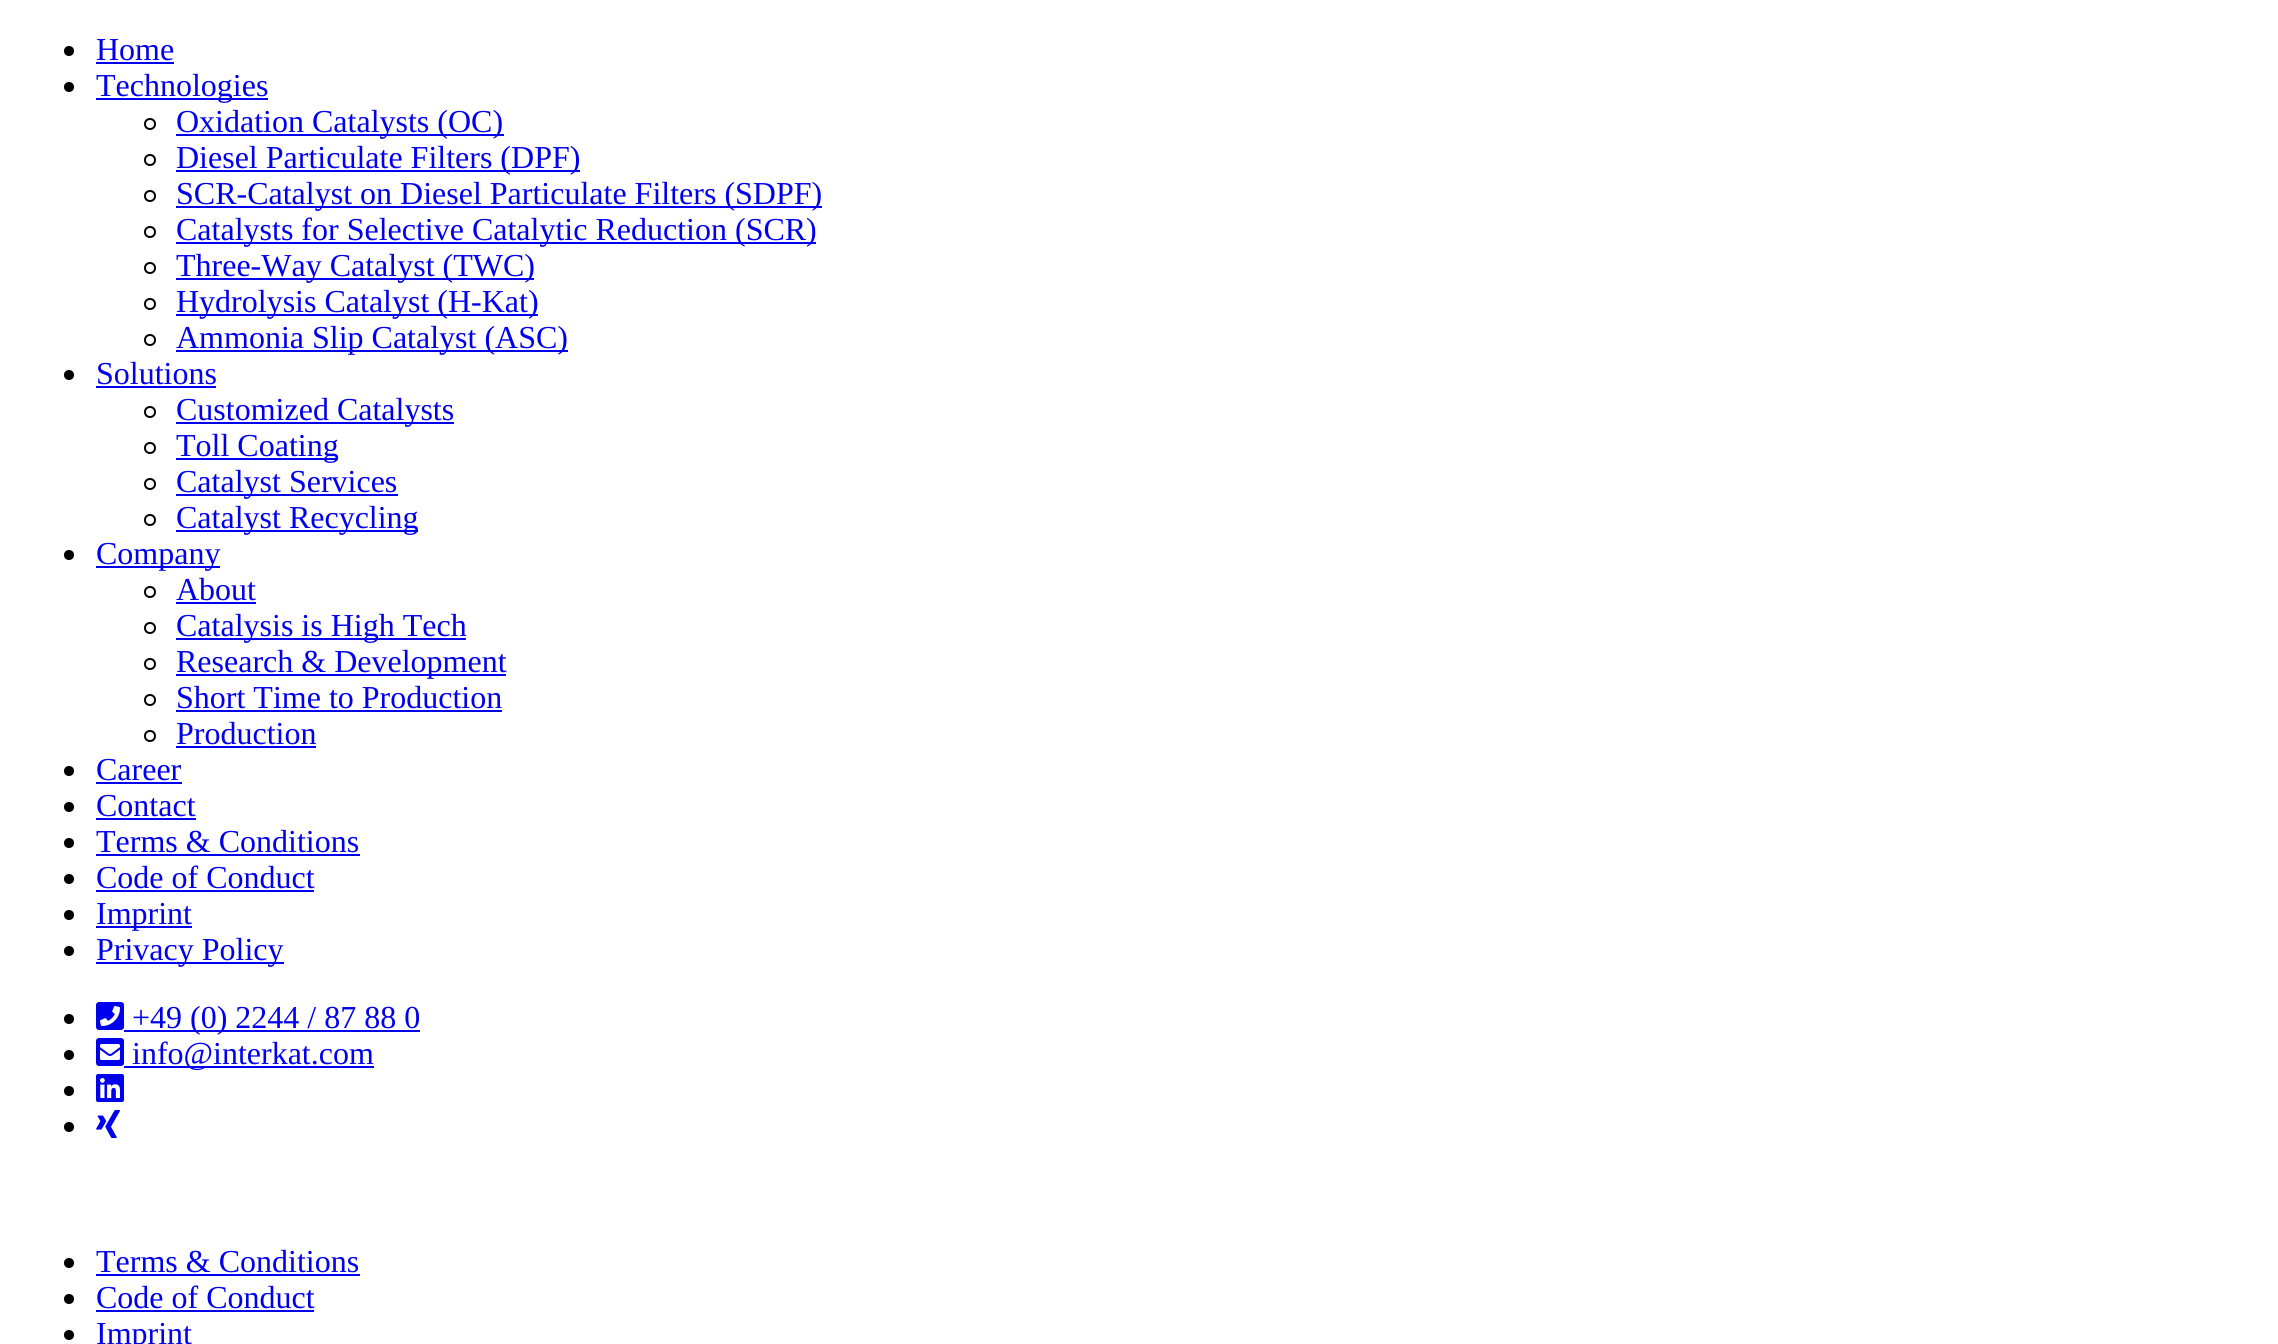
import math
import cairo


def use_color(cr, r, g, b):
  cr.set_source_rgb(r / 255, g / 255, b / 255)

def text(cr, x, y, s, family, size, color, bold=False, italic=False):
  cr.select_font_face(family, cairo.FONT_SLANT_ITALIC if italic else cairo.FONT_SLANT_NORMAL, cairo.FONT_WEIGHT_BOLD if bold else cairo.FONT_WEIGHT_NORMAL)
  cr.set_font_size(size)
  use_color(cr, *color)
  cr.move_to(x, y)
  cr.show_text(s)

def box(cr, x, y, w, h, *color):
  use_color(cr, *color)
  cr.rectangle(x, y, w, h)
  cr.fill()

def picture(cr, path, x, y, w, h):
  cr.save()
  cr.set_source_surface(cairo.ImageSurface.create_from_png(path), x, y)
  cr.rectangle(x, y, w, h)
  cr.fill()
  cr.restore()

def draw(cr):
  use_color(cr, 255, 255, 255)
  cr.paint()
  use_color(cr, 0, 0, 0)
  cr.arc(69, 51, 5, 0, 2 * math.pi)
  cr.fill()
  box(cr, 96, 62, 78, 2, 0, 0, 238)
  use_color(cr, 0, 0, 0)
  cr.arc(69, 87, 5, 0, 2 * math.pi)
  cr.fill()
  box(cr, 96, 98, 172, 2, 0, 0, 238)
  cr.arc(150, 124, 5, 0, 2 * math.pi)
  use_color(cr, 0, 0, 0)
  cr.stroke()
  box(cr, 176, 134, 328, 2, 0, 0, 238)
  cr.arc(150, 160, 5, 0, 2 * math.pi)
  use_color(cr, 0, 0, 0)
  cr.stroke()
  box(cr, 176, 170, 404, 2, 0, 0, 238)
  cr.arc(150, 196, 5, 0, 2 * math.pi)
  use_color(cr, 0, 0, 0)
  cr.stroke()
  box(cr, 176, 206, 646, 2, 0, 0, 238)
  cr.arc(150, 232, 5, 0, 2 * math.pi)
  use_color(cr, 0, 0, 0)
  cr.stroke()
  box(cr, 176, 242, 640, 2, 0, 0, 238)
  cr.arc(150, 268, 5, 0, 2 * math.pi)
  use_color(cr, 0, 0, 0)
  cr.stroke()
  box(cr, 176, 278, 358, 2, 0, 0, 238)
  cr.arc(150, 304, 5, 0, 2 * math.pi)
  use_color(cr, 0, 0, 0)
  cr.stroke()
  box(cr, 176, 314, 362, 2, 0, 0, 238)
  cr.arc(150, 340, 5, 0, 2 * math.pi)
  use_color(cr, 0, 0, 0)
  cr.stroke()
  box(cr, 176, 350, 392, 2, 0, 0, 238)
  use_color(cr, 0, 0, 0)
  cr.arc(69, 375, 5, 0, 2 * math.pi)
  cr.fill()
  box(cr, 96, 386, 120, 2, 0, 0, 238)
  cr.arc(150, 412, 5, 0, 2 * math.pi)
  use_color(cr, 0, 0, 0)
  cr.stroke()
  box(cr, 176, 422, 278, 2, 0, 0, 238)
  cr.arc(150, 448, 5, 0, 2 * math.pi)
  use_color(cr, 0, 0, 0)
  cr.stroke()
  box(cr, 176, 458, 162, 2, 0, 0, 238)
  cr.arc(150, 484, 5, 0, 2 * math.pi)
  use_color(cr, 0, 0, 0)
  cr.stroke()
  box(cr, 176, 494, 222, 2, 0, 0, 238)
  cr.arc(150, 520, 5, 0, 2 * math.pi)
  use_color(cr, 0, 0, 0)
  cr.stroke()
  box(cr, 176, 530, 242, 2, 0, 0, 238)
  use_color(cr, 0, 0, 0)
  cr.arc(69, 555, 5, 0, 2 * math.pi)
  cr.fill()
  box(cr, 96, 566, 124, 2, 0, 0, 238)
  cr.arc(150, 592, 5, 0, 2 * math.pi)
  use_color(cr, 0, 0, 0)
  cr.stroke()
  box(cr, 176, 602, 80, 2, 0, 0, 238)
  cr.arc(150, 628, 5, 0, 2 * math.pi)
  use_color(cr, 0, 0, 0)
  cr.stroke()
  box(cr, 176, 638, 290, 2, 0, 0, 238)
  cr.arc(150, 664, 5, 0, 2 * math.pi)
  use_color(cr, 0, 0, 0)
  cr.stroke()
  box(cr, 176, 674, 330, 2, 0, 0, 238)
  cr.arc(150, 700, 5, 0, 2 * math.pi)
  use_color(cr, 0, 0, 0)
  cr.stroke()
  box(cr, 176, 710, 326, 2, 0, 0, 238)
  cr.arc(150, 736, 5, 0, 2 * math.pi)
  use_color(cr, 0, 0, 0)
  cr.stroke()
  box(cr, 176, 746, 140, 2, 0, 0, 238)
  use_color(cr, 0, 0, 0)
  cr.arc(69, 771, 5, 0, 2 * math.pi)
  cr.fill()
  box(cr, 96, 782, 86, 2, 0, 0, 238)
  use_color(cr, 0, 0, 0)
  cr.arc(69, 807, 5, 0, 2 * math.pi)
  cr.fill()
  box(cr, 96, 818, 100, 2, 0, 0, 238)
  use_color(cr, 0, 0, 0)
  cr.arc(69, 843, 5, 0, 2 * math.pi)
  cr.fill()
  box(cr, 96, 854, 264, 2, 0, 0, 238)
  use_color(cr, 0, 0, 0)
  cr.arc(69, 879, 5, 0, 2 * math.pi)
  cr.fill()
  box(cr, 96, 890, 218, 2, 0, 0, 238)
  use_color(cr, 0, 0, 0)
  cr.arc(69, 915, 5, 0, 2 * math.pi)
  cr.fill()
  box(cr, 96, 926, 96, 2, 0, 0, 238)
  use_color(cr, 0, 0, 0)
  cr.arc(69, 951, 5, 0, 2 * math.pi)
  cr.fill()
  box(cr, 96, 962, 188, 2, 0, 0, 238)
  use_color(cr, 0, 0, 0)
  cr.arc(69, 1019, 5, 0, 2 * math.pi)
  cr.fill()
  picture(cr, "img_01.png", 96, 1002, 28, 28)
  box(cr, 124, 1030, 296, 2, 0, 0, 238)
  use_color(cr, 0, 0, 0)
  cr.arc(69, 1055, 5, 0, 2 * math.pi)
  cr.fill()
  picture(cr, "img_02.png", 96, 1038, 28, 28)
  box(cr, 124, 1066, 250, 2, 0, 0, 238)
  use_color(cr, 0, 0, 0)
  cr.arc(69, 1091, 5, 0, 2 * math.pi)
  cr.fill()
  picture(cr, "img_03.png", 96, 1074, 28, 28)
  cr.arc(69, 1127, 5, 0, 2 * math.pi)
  cr.fill()
  picture(cr, "img_04.png", 96, 1110, 24, 28)
  cr.arc(69, 1263, 5, 0, 2 * math.pi)
  cr.fill()
  box(cr, 96, 1274, 264, 2, 0, 0, 238)
  use_color(cr, 0, 0, 0)
  cr.arc(69, 1299, 5, 0, 2 * math.pi)
  cr.fill()
  box(cr, 96, 1310, 218, 2, 0, 0, 238)
  use_color(cr, 0, 0, 0)
  cr.arc(69, 1335, 5, 0, 2 * math.pi)
  cr.fill()
  text(cr, 96, 60, "Home", "Liberation Serif", 32, (0, 0, 238))
  text(cr, 96, 96, "Technologies", "Liberation Serif", 32, (0, 0, 238))
  text(cr, 176, 132, "Oxidation Catalysts (OC)", "Liberation Serif", 32, (0, 0, 238))
  text(cr, 176, 168, "Diesel Particulate Filters (DPF)", "Liberation Serif", 32, (0, 0, 238))
  text(cr, 176, 204, "SCR-Catalyst on Diesel Particulate Filters (SDPF)", "Liberation Serif", 32, (0, 0, 238))
  text(cr, 176, 240, "Catalysts for Selective Catalytic Reduction (SCR)", "Liberation Serif", 32, (0, 0, 238))
  text(cr, 176, 276, "Three-Way Catalyst (TWC)", "Liberation Serif", 32, (0, 0, 238))
  text(cr, 176, 312, "Hydrolysis Catalyst (H-Kat)", "Liberation Serif", 32, (0, 0, 238))
  text(cr, 176, 348, "Ammonia Slip Catalyst (ASC)", "Liberation Serif", 32, (0, 0, 238))
  text(cr, 96, 384, "Solutions", "Liberation Serif", 32, (0, 0, 238))
  text(cr, 176, 420, "Customized Catalysts", "Liberation Serif", 32, (0, 0, 238))
  text(cr, 176, 456, "Toll Coating", "Liberation Serif", 32, (0, 0, 238))
  text(cr, 176, 492, "Catalyst Services", "Liberation Serif", 32, (0, 0, 238))
  text(cr, 176, 528, "Catalyst Recycling", "Liberation Serif", 32, (0, 0, 238))
  text(cr, 96, 564, "Company", "Liberation Serif", 32, (0, 0, 238))
  text(cr, 176, 600, "About", "Liberation Serif", 32, (0, 0, 238))
  text(cr, 176, 636, "Catalysis is High Tech", "Liberation Serif", 32, (0, 0, 238))
  text(cr, 176, 672, "Research & Development", "Liberation Serif", 32, (0, 0, 238))
  text(cr, 176, 708, "Short Time to Production", "Liberation Serif", 32, (0, 0, 238))
  text(cr, 176, 744, "Production", "Liberation Serif", 32, (0, 0, 238))
  text(cr, 96, 780, "Career", "Liberation Serif", 32, (0, 0, 238))
  text(cr, 96, 816, "Contact", "Liberation Serif", 32, (0, 0, 238))
  text(cr, 96, 852, "Terms & Conditions", "Liberation Serif", 32, (0, 0, 238))
  text(cr, 96, 888, "Code of Conduct", "Liberation Serif", 32, (0, 0, 238))
  text(cr, 96, 924, "Imprint", "Liberation Serif", 32, (0, 0, 238))
  text(cr, 96, 960, "Privacy Policy", "Liberation Serif", 32, (0, 0, 238))
  text(cr, 132, 1028, "+49 (0) 2244 / 87 88 0", "Liberation Serif", 32, (0, 0, 238))
  text(cr, 132, 1064, "info@interkat.com", "Liberation Serif", 32, (0, 0, 238))
  text(cr, 96, 1272, "Terms & Conditions", "Liberation Serif", 32, (0, 0, 238))
  text(cr, 96, 1308, "Code of Conduct", "Liberation Serif", 32, (0, 0, 238))
  text(cr, 96, 1344, "Imprint", "Liberation Serif", 32, (0, 0, 238))


surface = cairo.ImageSurface(cairo.FORMAT_RGB24, 2278, 1344)
cr = cairo.Context(surface)
options = cairo.FontOptions()
options.set_hint_metrics(cairo.HINT_METRICS_OFF)
options.set_hint_style(cairo.HINT_STYLE_NONE)
cr.set_font_options(options)
cr.set_miter_limit(4)
draw(cr)
surface.write_to_png("out.png")
